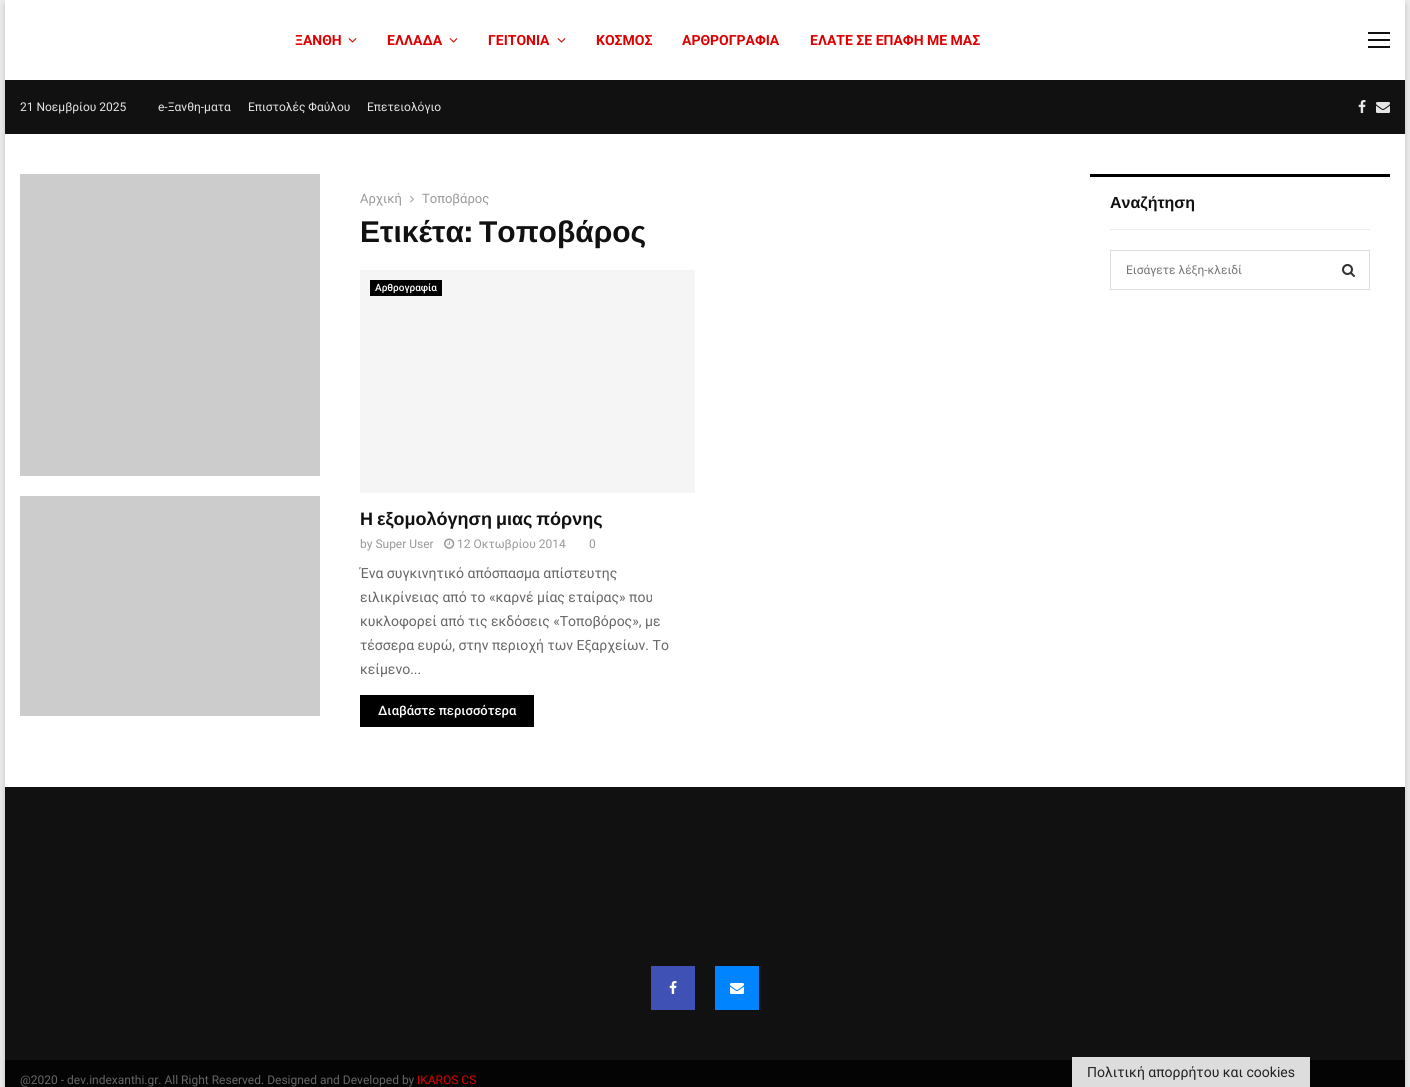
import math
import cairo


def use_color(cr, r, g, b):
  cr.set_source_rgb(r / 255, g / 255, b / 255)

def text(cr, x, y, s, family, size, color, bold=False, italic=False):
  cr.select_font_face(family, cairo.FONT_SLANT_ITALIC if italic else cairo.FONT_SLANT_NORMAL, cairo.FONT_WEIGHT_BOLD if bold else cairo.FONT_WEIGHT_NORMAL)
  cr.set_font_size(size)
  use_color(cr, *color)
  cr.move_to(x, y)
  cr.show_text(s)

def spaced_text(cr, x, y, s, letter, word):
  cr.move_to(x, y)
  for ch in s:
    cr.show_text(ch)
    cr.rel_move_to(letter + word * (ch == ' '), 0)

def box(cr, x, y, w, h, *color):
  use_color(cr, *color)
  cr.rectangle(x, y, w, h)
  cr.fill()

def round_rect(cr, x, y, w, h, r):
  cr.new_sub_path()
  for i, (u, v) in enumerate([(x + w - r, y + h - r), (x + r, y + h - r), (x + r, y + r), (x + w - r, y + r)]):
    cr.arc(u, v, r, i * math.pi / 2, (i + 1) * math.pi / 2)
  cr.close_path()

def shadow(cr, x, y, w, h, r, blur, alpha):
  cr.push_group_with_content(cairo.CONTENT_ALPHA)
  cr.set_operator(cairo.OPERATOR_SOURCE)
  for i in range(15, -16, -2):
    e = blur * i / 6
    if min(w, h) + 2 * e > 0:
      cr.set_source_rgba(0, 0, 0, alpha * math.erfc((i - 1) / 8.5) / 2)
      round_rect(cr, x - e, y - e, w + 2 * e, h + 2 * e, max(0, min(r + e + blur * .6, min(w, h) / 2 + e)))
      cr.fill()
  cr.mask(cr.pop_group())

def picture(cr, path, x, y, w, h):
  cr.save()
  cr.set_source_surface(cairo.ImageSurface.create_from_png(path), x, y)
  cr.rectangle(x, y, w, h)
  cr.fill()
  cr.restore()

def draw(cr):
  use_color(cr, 238, 238, 238)
  cr.paint()
  use_color(cr, 0, 0, 0)
  shadow(cr, 5, 5, 1400, 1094, 0, 4, 0.2)
  box(cr, 5, 0, 1400, 787, 255, 255, 255)
  picture(cr, "img_01.png", 348, 38, 9, 5)
  picture(cr, "img_01.png", 449, 38, 9, 5)
  picture(cr, "img_01.png", 557, 38, 9, 5)
  box(cr, 1368, 32, 22, 2, 17, 17, 17)
  box(cr, 1368, 46, 22, 2, 17, 17, 17)
  box(cr, 1368, 39, 22, 2, 17, 17, 17)
  box(cr, 5, 80, 1400, 54, 17, 17, 17)
  picture(cr, "img_02.png", 1358, 100, 8, 13)
  picture(cr, "img_03.png", 1376, 102, 14, 11)
  box(cr, 20, 174, 300, 302, 204, 204, 204)
  box(cr, 20, 496, 300, 220, 204, 204, 204)
  picture(cr, "img_04.png", 410, 195, 4, 8)
  box(cr, 360, 270, 335, 223, 245, 245, 245)
  box(cr, 370, 280, 72, 16, 0, 0, 0)
  picture(cr, "img_05.png", 444, 538, 11, 11)
  box(cr, 360, 695, 174, 32, 0, 0, 0)
  box(cr, 1110, 229, 260, 1, 236, 236, 236)
  box(cr, 1090, 174, 300, 3, 0, 0, 0)
  cr.rectangle(1110.5, 250.5, 259, 39)
  use_color(cr, 222, 222, 222)
  cr.set_line_width(1)
  cr.stroke()
  picture(cr, "img_06.png", 1342, 264, 13, 13)
  box(cr, 5, 787, 1400, 273, 17, 17, 17)
  box(cr, 651, 966, 44, 44, 63, 81, 181)
  picture(cr, "img_07.png", 669, 981, 8, 13)
  box(cr, 715, 966, 44, 44, 0, 132, 255)
  picture(cr, "img_08.png", 730, 983, 14, 11)
  box(cr, 5, 1060, 1400, 27, 4, 4, 4)
  box(cr, 1072, 1057, 238, 30, 221, 221, 221)
  text(cr, 295, 45, "ΞΑΝΘΗ", "Roboto", 14, (221, 0, 0), bold=True)
  text(cr, 387, 45, "ΕΛΛΑΔΑ", "Roboto", 14, (221, 0, 0), bold=True)
  text(cr, 488, 45, "ΓΕΙΤΟΝΙΑ", "Roboto", 14, (221, 0, 0), bold=True)
  text(cr, 596, 45, "ΚΟΣΜΟΣ", "Roboto", 14, (221, 0, 0), bold=True)
  text(cr, 682, 45, "ΑΡΘΡΟΓΡΑΦΙΑ", "Roboto", 14, (221, 0, 0), bold=True)
  text(cr, 810, 45, "ΕΛΑΤΕ ΣΕ ΕΠΑΦΗ ΜΕ ΜΑΣ", "Roboto", 14, (221, 0, 0), bold=True)
  text(cr, 20, 111, "21 Νοεμβρίου 2025", "Roboto", 12, (229, 229, 229))
  text(cr, 158, 111, "e-Ξανθη-ματα", "Roboto", 12, (229, 229, 229))
  text(cr, 248, 111, "Eπιστολές Φαύλου", "Roboto", 12, (229, 229, 229))
  text(cr, 367, 111, "Επετειολόγιο", "Roboto", 12, (229, 229, 229))
  text(cr, 360, 203, "Αρχική", "Roboto", 13, (153, 153, 153))
  text(cr, 422, 203, "Τοποβάρος", "Roboto", 13, (153, 153, 153))
  text(cr, 360, 242, "Ετικέτα", "Liberation Sans", 30, (17, 17, 17), bold=True)
  text(cr, 464, 242, ":", "Chivo", 30, (17, 17, 17), bold=True)
  text(cr, 479, 242, "Τοποβάρος", "Liberation Sans", 30, (17, 17, 17), bold=True)
  text(cr, 375, 291, "Αρθρογραφία", "Roboto Medium", 10, (255, 255, 255))
  cr.select_font_face("Liberation Sans", cairo.FONT_SLANT_NORMAL, cairo.FONT_WEIGHT_BOLD)
  cr.set_font_size(18)
  use_color(cr, 17, 17, 17)
  spaced_text(cr, 360, 525, "Η εξομολόγηση μιας πόρνης", 0, -1)
  text(cr, 360, 548, "by Super User", "Roboto", 12, (153, 153, 153))
  text(cr, 457, 548, "12 Οκτωβρίου 2014", "Roboto", 12, (153, 153, 153))
  text(cr, 589, 548, "0", "Roboto", 12, (153, 153, 153))
  text(cr, 360, 578, "Ένα συγκινητικό απόσπασμα απίστευτης", "Roboto", 14, (102, 102, 102))
  text(cr, 360, 602, "ειλικρίνειας από το «καρνέ μίας εταίρας» που", "Roboto", 14, (102, 102, 102))
  text(cr, 360, 626, "κυκλοφορεί από τις εκδόσεις «Τοποβόρος», με", "Roboto", 14, (102, 102, 102))
  text(cr, 360, 650, "τέσσερα ευρώ, στην περιοχή των Εξαρχείων. Το", "Roboto", 14, (102, 102, 102))
  text(cr, 360, 674, "κείμενο...", "Roboto", 14, (102, 102, 102))
  text(cr, 378, 715, "Διαβάστε περισσότερα", "Roboto Medium", 13, (255, 255, 255))
  text(cr, 1110, 208, "Αναζήτηση", "Liberation Sans", 16, (17, 17, 17), bold=True)
  text(cr, 1126, 274, "Εισάγετε λέξη-κλειδί", "Roboto", 12, (117, 117, 117))
  text(cr, 20, 1084, "@2020 - dev.indexanthi.gr. All Right Reserved. Designed and Developed by", "Roboto", 12, (102, 102, 102))
  text(cr, 417, 1084, "IKAROS CS", "Roboto", 12, (221, 0, 0))
  text(cr, 1087, 1077, "Πολιτική απορρήτου και cookies", "Roboto", 14, (33, 33, 33))


surface = cairo.ImageSurface(cairo.FORMAT_RGB24, 1410, 1087)
cr = cairo.Context(surface)
options = cairo.FontOptions()
options.set_hint_metrics(cairo.HINT_METRICS_OFF)
options.set_hint_style(cairo.HINT_STYLE_NONE)
cr.set_font_options(options)
cr.set_miter_limit(4)
draw(cr)
surface.write_to_png("out.png")
